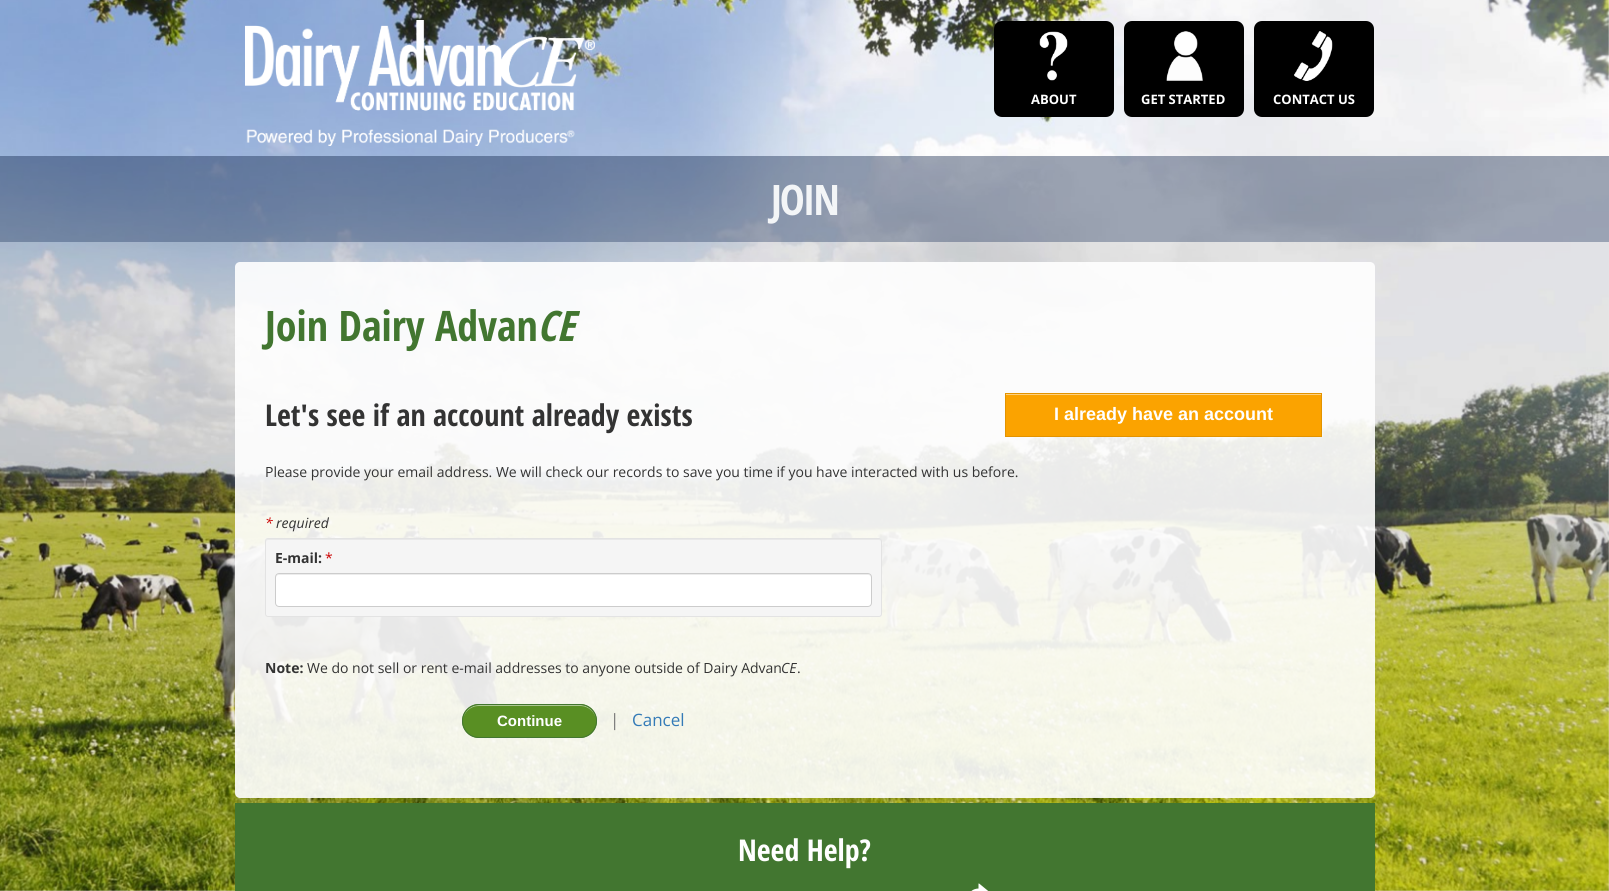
import math
import cairo


def use_color(cr, r, g, b):
  cr.set_source_rgb(r / 255, g / 255, b / 255)

def text(cr, x, y, s, family, size, color, bold=False, italic=False):
  cr.select_font_face(family, cairo.FONT_SLANT_ITALIC if italic else cairo.FONT_SLANT_NORMAL, cairo.FONT_WEIGHT_BOLD if bold else cairo.FONT_WEIGHT_NORMAL)
  cr.set_font_size(size)
  use_color(cr, *color)
  cr.move_to(x, y)
  cr.show_text(s)

def spaced_text(cr, x, y, s, letter, word):
  cr.move_to(x, y)
  for ch in s:
    cr.show_text(ch)
    cr.rel_move_to(letter + word * (ch == ' '), 0)

def box(cr, x, y, w, h, *color):
  use_color(cr, *color)
  cr.rectangle(x, y, w, h)
  cr.fill()

def round_rect(cr, x, y, w, h, r):
  cr.new_sub_path()
  for i, (u, v) in enumerate([(x + w - r, y + h - r), (x + r, y + h - r), (x + r, y + r), (x + w - r, y + r)]):
    cr.arc(u, v, r, i * math.pi / 2, (i + 1) * math.pi / 2)
  cr.close_path()

def picture(cr, path, x, y, w, h):
  cr.save()
  cr.set_source_surface(cairo.ImageSurface.create_from_png(path), x, y)
  cr.rectangle(x, y, w, h)
  cr.fill()
  cr.restore()

def draw(cr):
  use_color(cr, 255, 255, 255)
  cr.paint()
  picture(cr, "img_01.png", 0, 0, 1609, 891)
  picture(cr, "img_02.png", 245, 20, 350, 126)
  use_color(cr, 0, 0, 0)
  round_rect(cr, 994, 21, 120, 96, 8)
  cr.fill()
  picture(cr, "img_03.png", 1039, 31, 29, 50)
  round_rect(cr, 1124, 21, 120, 96, 8)
  cr.fill()
  picture(cr, "img_04.png", 1166, 31, 37, 50)
  round_rect(cr, 1254, 21, 120, 96, 8)
  cr.fill()
  picture(cr, "img_05.png", 1294, 31, 39, 50)
  cr.set_source_rgba(0.047, 0.122, 0.271, 0.4)
  cr.rectangle(0, 156, 1609, 86)
  cr.fill()
  cr.set_source_rgba(0, 0, 0, 0.1)
  cr.rectangle(0, 242, 1609, 561)
  cr.fill()
  cr.set_source_rgba(1, 1, 1, 0.9)
  round_rect(cr, 235, 262, 1140, 536, 5)
  cr.fill()
  box(cr, 1006, 395, 315, 41, 251, 163, 0)
  box(cr, 1006, 394, 315, 1, 253, 209, 128)
  cr.rectangle(1005.5, 393.5, 316, 43)
  use_color(cr, 227, 147, 0)
  cr.set_line_width(1)
  cr.stroke()
  use_color(cr, 245, 245, 245)
  round_rect(cr, 265, 538, 617, 79, 3)
  cr.fill()
  use_color(cr, 233, 233, 233)
  cr.new_path()
  cr.move_to(268, 540)
  cr.line_to(879, 540)
  cr.curve_to(880, 540, 881, 541, 881, 542)
  cr.curve_to(881, 541, 881, 539, 879, 539)
  cr.line_to(268, 539)
  cr.curve_to(266, 539, 266, 541, 266, 542)
  cr.curve_to(266, 541, 267, 540, 268, 540)
  cr.close_path()
  cr.fill()
  round_rect(cr, 265.5, 538.5, 616, 78, 2.5)
  use_color(cr, 227, 227, 227)
  cr.stroke()
  use_color(cr, 255, 255, 255)
  round_rect(cr, 275, 573, 597, 34, 4)
  cr.fill()
  use_color(cr, 236, 236, 236)
  cr.new_path()
  cr.move_to(279, 575)
  cr.line_to(868, 575)
  cr.curve_to(870, 575, 871, 576, 871, 578)
  cr.line_to(871, 577)
  cr.curve_to(871, 575, 870, 574, 868, 574)
  cr.line_to(279, 574)
  cr.curve_to(277, 574, 276, 575, 276, 577)
  cr.line_to(276, 578)
  cr.curve_to(276, 576, 277, 575, 279, 575)
  cr.close_path()
  cr.fill()
  round_rect(cr, 275.5, 573.5, 596, 33, 3.5)
  use_color(cr, 204, 204, 204)
  cr.stroke()
  use_color(cr, 89, 143, 35)
  round_rect(cr, 462, 704, 135, 34, 17)
  cr.fill()
  use_color(cr, 172, 199, 145)
  cr.new_path()
  cr.move_to(479, 706)
  cr.line_to(580, 706)
  cr.curve_to(589, 706, 596, 713, 596, 721)
  cr.curve_to(596, 712, 589, 705, 580, 705)
  cr.line_to(479, 705)
  cr.curve_to(470, 705, 463, 712, 463, 721)
  cr.curve_to(463, 713, 470, 706, 479, 706)
  cr.close_path()
  cr.fill()
  round_rect(cr, 462.5, 704.5, 134, 33, 16.5)
  use_color(cr, 66, 118, 48)
  cr.stroke()
  cr.set_source_rgba(0, 0, 0, 0.1)
  cr.rectangle(0, 803, 1609, 88)
  cr.fill()
  box(cr, 235, 803, 1140, 88, 66, 118, 48)
  picture(cr, "img_06.png", 971, 883, 18, 8)
  text(cr, 1031, 104, "ABOUT", "Open Sans", 13, (255, 255, 255), bold=True)
  text(cr, 1141, 104, "GET STARTED", "Open Sans", 13, (255, 255, 255), bold=True)
  text(cr, 1273, 104, "CONTACT US", "Open Sans", 13, (255, 255, 255), bold=True)
  cr.select_font_face("Open Sans Condensed", cairo.FONT_SLANT_NORMAL, cairo.FONT_WEIGHT_BOLD)
  cr.set_font_size(42)
  use_color(cr, 243, 245, 247)
  spaced_text(cr, 771, 215, "JOIN", -2, 0)
  text(cr, 265, 341, "Join Dairy Advan", "Open Sans Condensed", 42, (66, 118, 48), bold=True)
  text(cr, 537, 341, "CE", "Open Sans Condensed", 42, (66, 118, 48), bold=True, italic=True)
  text(cr, 265, 426, "Let's see if an account already exists", "Open Sans Condensed", 30, (51, 51, 51), bold=True)
  text(cr, 1054, 420, "I already have an account", "Liberation Sans", 18, (255, 255, 255), bold=True)
  text(cr, 265, 477, "Please provide your email address. We will check our records to save you time if you have interacted with us before.", "Open Sans", 14, (51, 51, 51))
  text(cr, 265, 528, "*", "Open Sans", 14, (204, 0, 0), italic=True)
  text(cr, 276, 528, "required", "Open Sans", 14, (51, 51, 51), italic=True)
  text(cr, 275, 563, "E-mail:", "Open Sans", 14, (51, 51, 51), bold=True)
  text(cr, 325, 563, "*", "Open Sans", 14, (204, 0, 0))
  text(cr, 265, 673, "Note:", "Open Sans", 14, (51, 51, 51), bold=True)
  text(cr, 307, 673, "We do not sell or rent e-mail addresses to anyone outside of Dairy Advan", "Open Sans", 14, (51, 51, 51))
  text(cr, 781, 673, "CE", "Open Sans", 14, (51, 51, 51), italic=True)
  text(cr, 797, 673, ".", "Open Sans", 14, (51, 51, 51))
  text(cr, 497, 726, "Continue", "Liberation Sans", 15, (255, 255, 255), bold=True)
  text(cr, 610, 726, "|", "Open Sans", 17, (119, 119, 119))
  text(cr, 632, 726, "Cancel", "Open Sans", 17, (51, 122, 183))
  text(cr, 738, 861, "Need Help?", "Open Sans Condensed", 30, (255, 255, 255), bold=True)


surface = cairo.ImageSurface(cairo.FORMAT_RGB24, 1609, 891)
cr = cairo.Context(surface)
options = cairo.FontOptions()
options.set_hint_metrics(cairo.HINT_METRICS_OFF)
options.set_hint_style(cairo.HINT_STYLE_NONE)
cr.set_font_options(options)
cr.set_miter_limit(4)
draw(cr)
surface.write_to_png("out.png")
